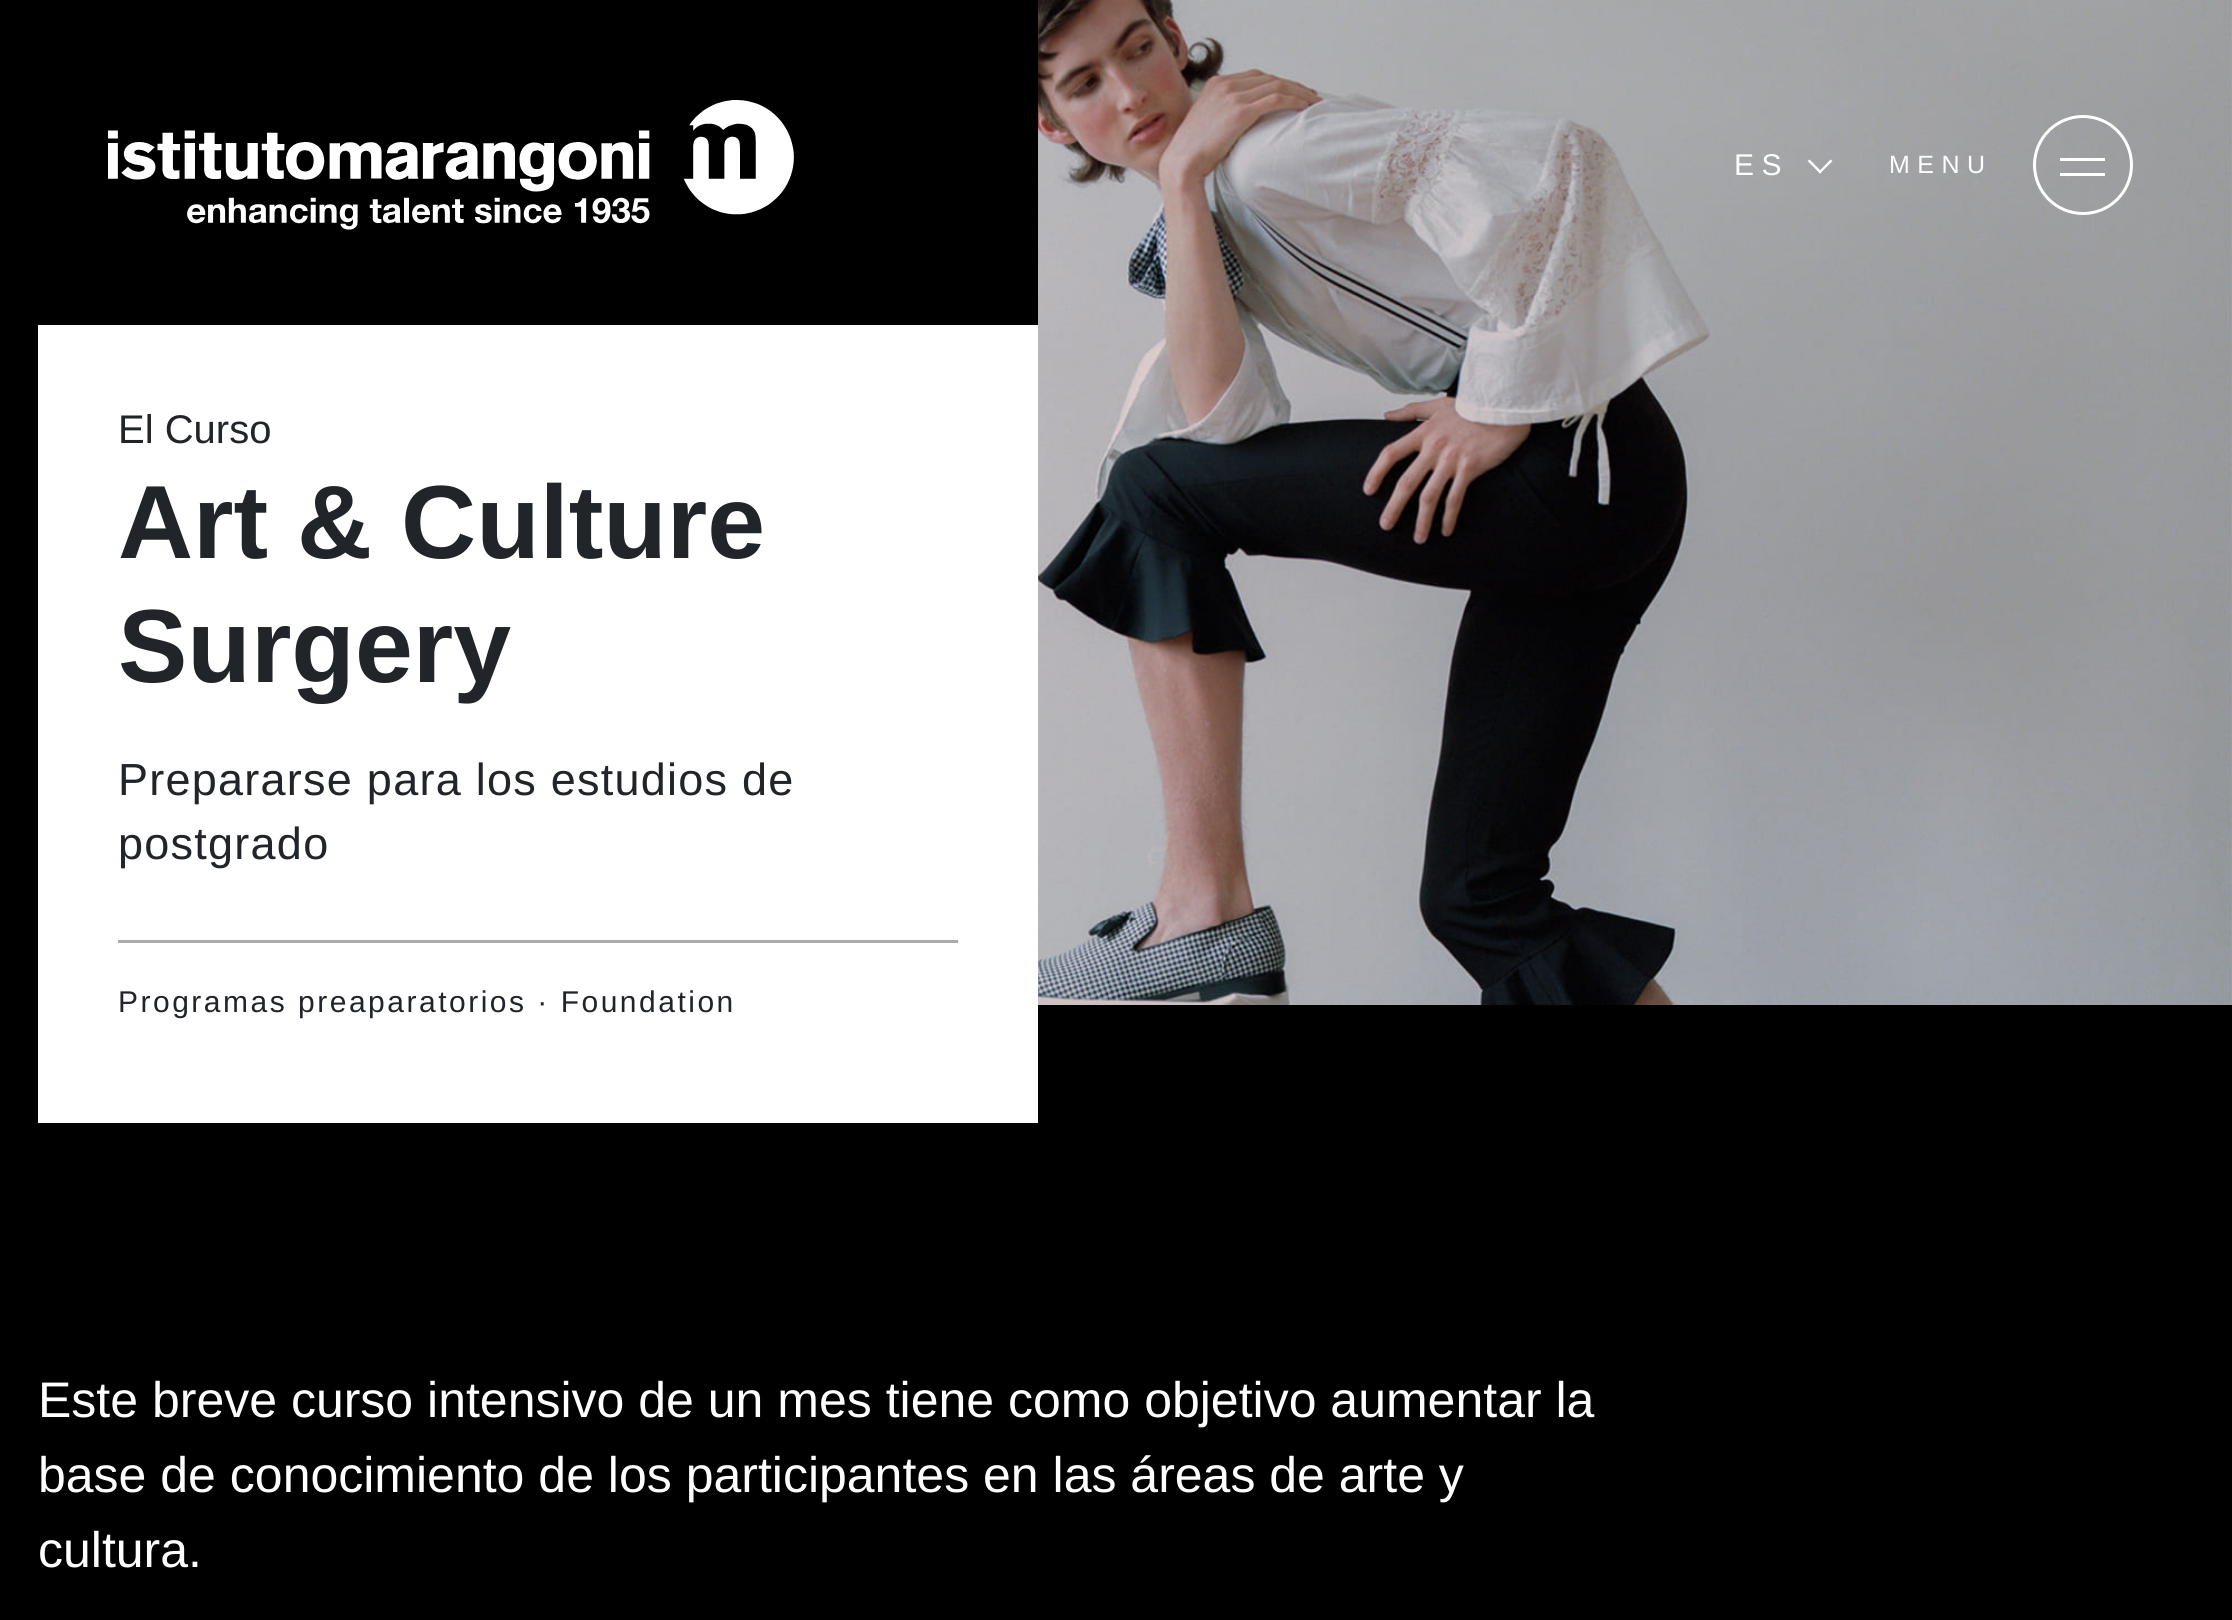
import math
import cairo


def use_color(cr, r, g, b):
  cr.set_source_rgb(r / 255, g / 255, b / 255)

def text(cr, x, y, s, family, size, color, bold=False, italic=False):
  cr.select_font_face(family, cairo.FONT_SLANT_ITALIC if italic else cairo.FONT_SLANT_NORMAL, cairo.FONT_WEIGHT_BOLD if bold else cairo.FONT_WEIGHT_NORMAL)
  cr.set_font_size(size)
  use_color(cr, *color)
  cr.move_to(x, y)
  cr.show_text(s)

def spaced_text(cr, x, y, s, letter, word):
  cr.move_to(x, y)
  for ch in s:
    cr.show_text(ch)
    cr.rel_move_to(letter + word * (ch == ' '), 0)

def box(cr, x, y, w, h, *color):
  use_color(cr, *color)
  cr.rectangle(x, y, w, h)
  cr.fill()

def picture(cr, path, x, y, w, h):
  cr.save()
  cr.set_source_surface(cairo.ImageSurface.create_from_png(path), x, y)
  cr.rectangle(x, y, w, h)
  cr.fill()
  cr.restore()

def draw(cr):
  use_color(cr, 0, 0, 0)
  cr.paint()
  picture(cr, "img_01.png", 108, 100, 686, 130)
  picture(cr, "img_02.png", 1038, 0, 1194, 1005)
  use_color(cr, 255, 255, 255)
  cr.new_path()
  cr.move_to(1818.5, 172)
  cr.line_to(1830.5, 159.5)
  cr.line_to(1832.5, 161)
  cr.line_to(1820, 173.5)
  cr.close_path()
  cr.fill()
  cr.new_path()
  cr.move_to(1807.5, 161)
  cr.line_to(1809.5, 159.5)
  cr.line_to(1822, 172)
  cr.line_to(1820, 173.5)
  cr.close_path()
  cr.fill()
  cr.arc(2083, 165, 48.5, 0, 2 * math.pi)
  cr.set_line_width(3)
  cr.stroke()
  box(cr, 2060, 158, 45, 3, 255, 255, 255)
  box(cr, 2060, 173, 45, 3, 255, 255, 255)
  box(cr, 38, 325, 1000, 798, 255, 255, 255)
  box(cr, 118, 940, 840, 3, 170, 170, 170)
  cr.select_font_face("Liberation Sans")
  cr.set_font_size(30)
  use_color(cr, 255, 255, 255)
  spaced_text(cr, 1734, 175, "ES", 7.5, 0)
  cr.set_font_size(25)
  spaced_text(cr, 1889, 173, "MENU", 7.5, 0)
  text(cr, 118, 443, "El Curso", "Liberation Sans", 40, (33, 37, 41))
  text(cr, 118, 558, "Art & Culture", "Liberation Sans", 104, (33, 37, 41), bold=True)
  text(cr, 118, 682, "Surgery", "Liberation Sans", 104, (33, 37, 41), bold=True)
  cr.select_font_face("Liberation Sans")
  cr.set_font_size(45)
  spaced_text(cr, 118, 795, "Prepararse para los estudios de", 1.25, 0)
  spaced_text(cr, 118, 859, "postgrado", 1.25, 0)
  cr.set_font_size(30)
  spaced_text(cr, 118, 1012, "Programas preaparatorios · Foundation", 2.5, 0)
  text(cr, 38, 1417, "Este breve curso intensivo de un mes tiene como objetivo aumentar la", "Liberation Sans", 50, (255, 255, 255))
  text(cr, 38, 1492, "base de conocimiento de los participantes en las áreas de arte y", "Liberation Sans", 50, (255, 255, 255))
  text(cr, 38, 1567, "cultura.", "Liberation Sans", 50, (255, 255, 255))


surface = cairo.ImageSurface(cairo.FORMAT_RGB24, 2232, 1620)
cr = cairo.Context(surface)
options = cairo.FontOptions()
options.set_hint_metrics(cairo.HINT_METRICS_OFF)
options.set_hint_style(cairo.HINT_STYLE_NONE)
cr.set_font_options(options)
cr.set_miter_limit(4)
draw(cr)
surface.write_to_png("out.png")
